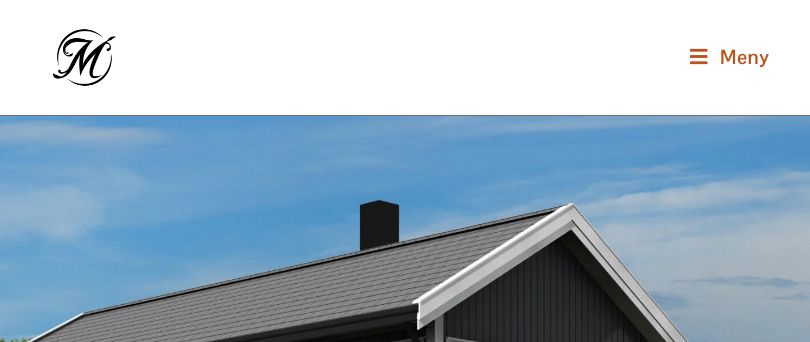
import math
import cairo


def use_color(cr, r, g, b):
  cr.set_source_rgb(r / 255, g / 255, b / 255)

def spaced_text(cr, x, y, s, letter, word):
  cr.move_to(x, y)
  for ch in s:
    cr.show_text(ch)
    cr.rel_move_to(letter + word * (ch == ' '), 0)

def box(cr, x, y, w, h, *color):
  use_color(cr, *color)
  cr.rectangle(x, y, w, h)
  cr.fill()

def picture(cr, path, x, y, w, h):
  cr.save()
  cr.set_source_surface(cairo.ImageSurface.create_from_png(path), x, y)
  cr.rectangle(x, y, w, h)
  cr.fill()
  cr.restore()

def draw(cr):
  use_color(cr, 255, 255, 255)
  cr.paint()
  box(cr, 0, 115, 810, 1, 114, 114, 114)
  picture(cr, "img_01.png", 53, 29, 63, 57)
  picture(cr, "img_02.png", 690, 48, 18, 17)
  picture(cr, "img_03.png", 0, 116, 810, 226)
  cr.select_font_face("Pontano Sans", cairo.FONT_SLANT_NORMAL, cairo.FONT_WEIGHT_BOLD)
  cr.set_font_size(20)
  use_color(cr, 188, 82, 27)
  spaced_text(cr, 720, 64, "Meny", 0.5, 0)


surface = cairo.ImageSurface(cairo.FORMAT_RGB24, 810, 342)
cr = cairo.Context(surface)
options = cairo.FontOptions()
options.set_hint_metrics(cairo.HINT_METRICS_OFF)
options.set_hint_style(cairo.HINT_STYLE_NONE)
cr.set_font_options(options)
cr.set_miter_limit(4)
draw(cr)
surface.write_to_png("out.png")
